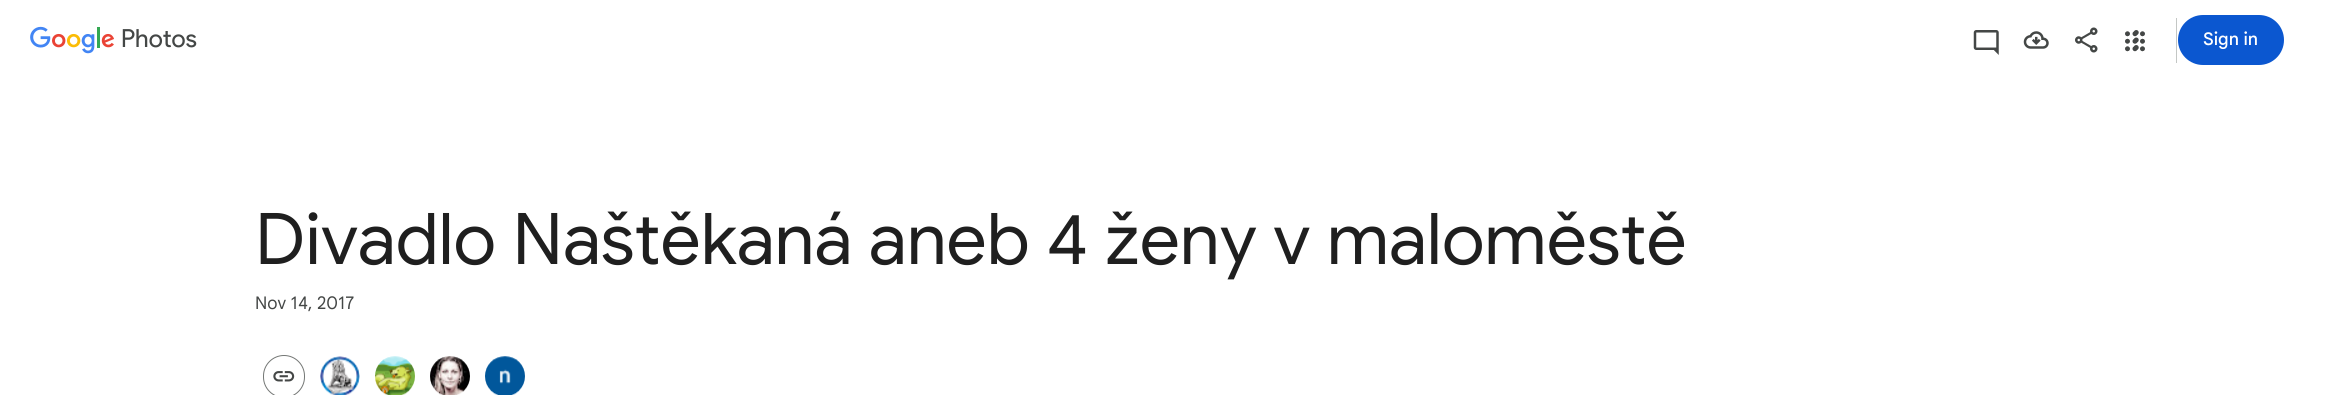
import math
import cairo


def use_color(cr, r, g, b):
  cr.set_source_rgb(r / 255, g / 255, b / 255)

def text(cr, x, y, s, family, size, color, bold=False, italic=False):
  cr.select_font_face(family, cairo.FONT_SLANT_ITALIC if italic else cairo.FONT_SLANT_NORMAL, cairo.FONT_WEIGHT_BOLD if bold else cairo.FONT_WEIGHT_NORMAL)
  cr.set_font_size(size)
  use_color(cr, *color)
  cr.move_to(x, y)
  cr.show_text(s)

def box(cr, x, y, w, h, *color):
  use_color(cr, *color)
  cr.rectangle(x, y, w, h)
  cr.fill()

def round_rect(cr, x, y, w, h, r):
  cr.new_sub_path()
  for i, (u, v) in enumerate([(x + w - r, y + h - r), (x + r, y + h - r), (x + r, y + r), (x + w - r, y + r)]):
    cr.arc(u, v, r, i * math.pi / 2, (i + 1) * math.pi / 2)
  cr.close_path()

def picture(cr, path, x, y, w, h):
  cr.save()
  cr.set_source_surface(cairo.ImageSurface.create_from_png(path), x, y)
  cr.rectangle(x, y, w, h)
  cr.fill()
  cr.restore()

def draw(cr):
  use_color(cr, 255, 255, 255)
  cr.paint()
  picture(cr, "img_01.png", 30, 26, 84, 28)
  picture(cr, "img_02.png", 1973, 30, 26, 25)
  picture(cr, "img_03.png", 2023, 31, 26, 18)
  picture(cr, "img_04.png", 2075, 27, 23, 26)
  picture(cr, "img_05.png", 2133, 30, 6, 20)
  box(cr, 2176, 18, 1, 45, 196, 199, 197)
  round_rect(cr, 263.5, 355.5, 41, 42, 20.5)
  use_color(cr, 116, 119, 117)
  cr.set_line_width(1)
  cr.stroke()
  picture(cr, "img_06.png", 273, 371, 22, 11)
  picture(cr, "img_07.png", 320, 356, 40, 39)
  picture(cr, "img_08.png", 375, 356, 40, 39)
  picture(cr, "img_09.png", 430, 356, 40, 39)
  picture(cr, "img_10.png", 485, 356, 40, 39)
  picture(cr, "img_11.png", 2125, 31, 20, 21)
  use_color(cr, 11, 87, 208)
  round_rect(cr, 2178, 15, 106, 50, 25)
  cr.fill()
  text(cr, 121, 47, "Photos", "Product Sans", 25, (68, 71, 70))
  text(cr, 255, 264, "Divadlo Naštěkaná aneb 4 ženy v maloměstě", "Google Sans", 71.25, (31, 31, 31))
  text(cr, 255, 309, "Nov 14, 2017", "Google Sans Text", 17.5, (68, 71, 70))
  text(cr, 2203, 45, "Sign in", "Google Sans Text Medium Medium", 17.5, (255, 255, 255))


surface = cairo.ImageSurface(cairo.FORMAT_RGB24, 2328, 395)
cr = cairo.Context(surface)
options = cairo.FontOptions()
options.set_hint_metrics(cairo.HINT_METRICS_OFF)
options.set_hint_style(cairo.HINT_STYLE_NONE)
cr.set_font_options(options)
cr.set_miter_limit(4)
draw(cr)
surface.write_to_png("out.png")
